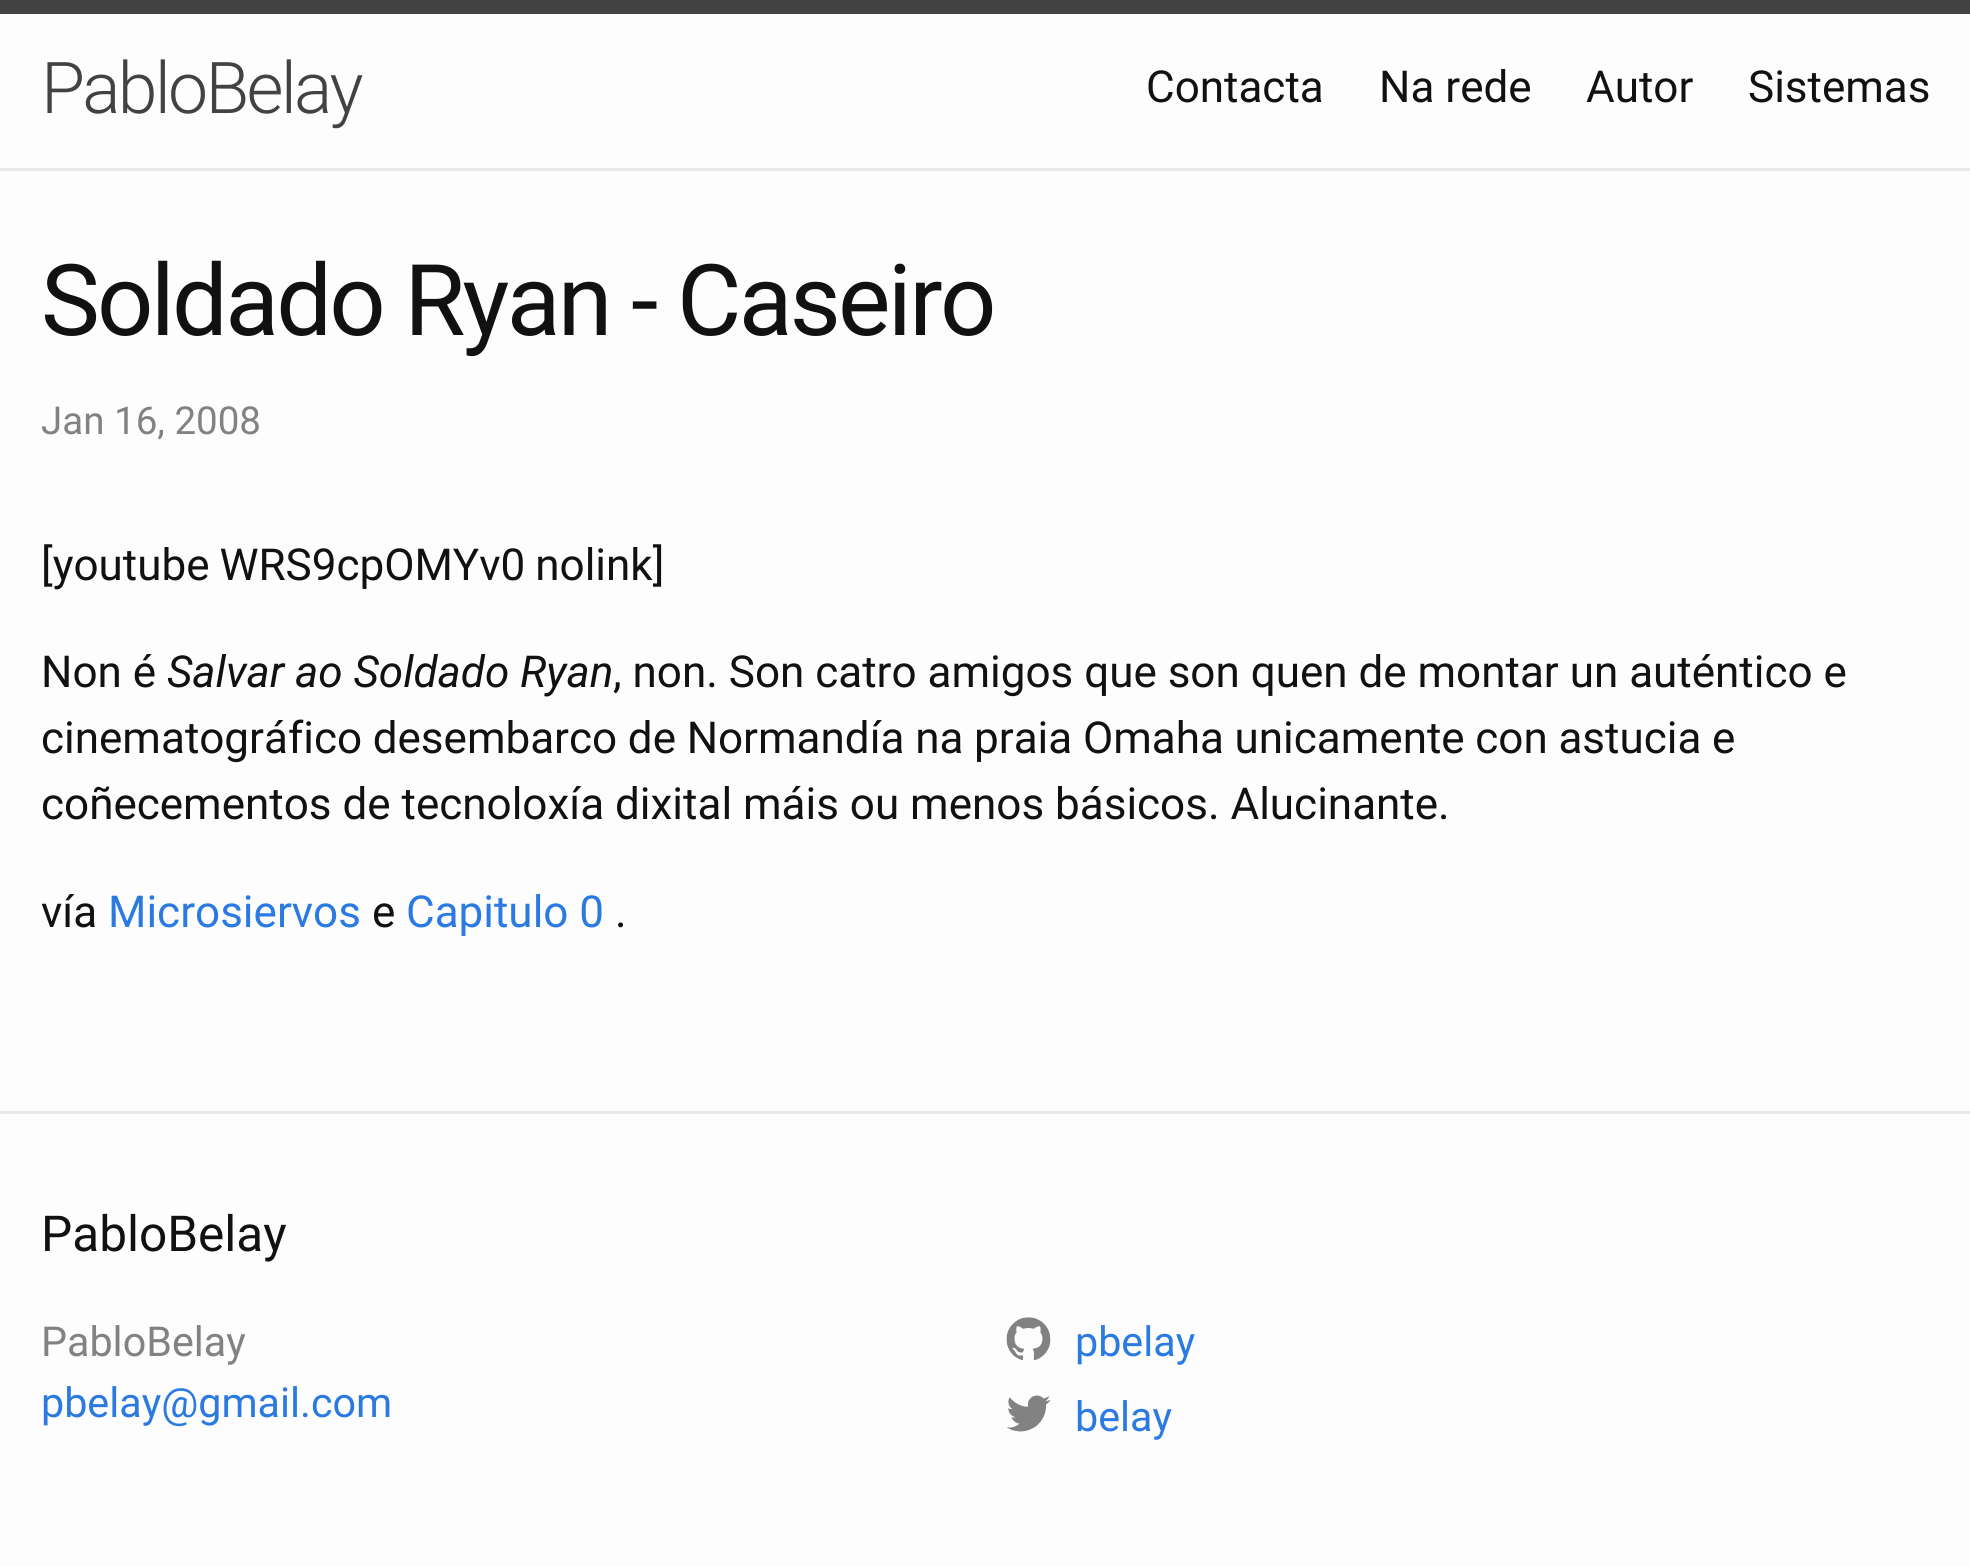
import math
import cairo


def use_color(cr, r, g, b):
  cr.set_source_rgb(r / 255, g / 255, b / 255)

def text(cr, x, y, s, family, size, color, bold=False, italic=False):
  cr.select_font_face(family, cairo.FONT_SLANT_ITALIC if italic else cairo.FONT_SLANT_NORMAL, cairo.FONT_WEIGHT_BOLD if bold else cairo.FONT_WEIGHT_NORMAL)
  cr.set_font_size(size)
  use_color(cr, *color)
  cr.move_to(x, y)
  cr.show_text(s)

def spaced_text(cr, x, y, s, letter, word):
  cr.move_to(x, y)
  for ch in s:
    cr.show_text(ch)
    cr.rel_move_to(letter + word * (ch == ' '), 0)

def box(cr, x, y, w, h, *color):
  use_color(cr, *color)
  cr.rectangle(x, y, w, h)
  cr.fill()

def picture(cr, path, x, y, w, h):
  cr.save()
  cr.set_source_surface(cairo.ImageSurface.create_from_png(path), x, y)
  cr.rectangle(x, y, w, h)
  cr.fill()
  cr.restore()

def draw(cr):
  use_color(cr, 253, 253, 253)
  cr.paint()
  box(cr, 0, 0, 1970, 14, 66, 66, 66)
  box(cr, 0, 168, 1970, 3, 232, 232, 232)
  box(cr, 0, 1111, 1970, 3, 232, 232, 232)
  picture(cr, "img_01.png", 1006, 1317, 45, 44)
  picture(cr, "img_02.png", 1007, 1395, 44, 37)
  cr.select_font_face("Roboto Light")
  cr.set_font_size(71.5)
  use_color(cr, 66, 66, 66)
  spaced_text(cr, 41, 113, "PabloBelay", -2.75, 0)
  text(cr, 1146, 102, "Contacta", "Roboto", 44, (17, 17, 17))
  text(cr, 1379, 102, "Na rede", "Roboto", 44, (17, 17, 17))
  text(cr, 1586, 102, "Autor", "Roboto", 44, (17, 17, 17))
  text(cr, 1748, 102, "Sistemas", "Roboto", 44, (17, 17, 17))
  cr.set_font_size(99)
  spaced_text(cr, 41, 335, "Soldado Ryan - Caseiro", -2.75, -0.5)
  text(cr, 41, 434, "Jan 16, 2008", "Roboto", 38.5, (130, 130, 130))
  cr.set_font_size(44)
  use_color(cr, 17, 17, 17)
  spaced_text(cr, 41, 580, "[youtube WRS9cpOMYv0 nolink]", 0, -1)
  text(cr, 41, 687, "Non é", "Roboto", 44, (17, 17, 17))
  text(cr, 167, 687, "Salvar ao Soldado Ryan", "Roboto", 44, (17, 17, 17), italic=True)
  text(cr, 613, 687, ", non. Son catro amigos que son quen de montar un auténtico e", "Roboto", 44, (17, 17, 17))
  spaced_text(cr, 41, 753, "cinematográfico desembarco de Normandía na praia Omaha unicamente con astucia e", 0, -0.25)
  text(cr, 41, 819, "coñecementos de tecnoloxía dixital máis ou menos básicos. Alucinante.", "Roboto", 44, (17, 17, 17))
  text(cr, 41, 927, "vía", "Roboto", 44, (17, 17, 17))
  text(cr, 108, 927, "Microsiervos", "Roboto", 44, (42, 122, 226))
  text(cr, 372, 927, "e", "Roboto", 44, (17, 17, 17))
  text(cr, 406, 927, "Capitulo 0", "Roboto", 44, (42, 122, 226))
  text(cr, 615, 927, ".", "Roboto", 44, (17, 17, 17))
  text(cr, 41, 1251, "PabloBelay", "Roboto", 49.5, (17, 17, 17))
  text(cr, 41, 1356, "PabloBelay", "Roboto", 41.25, (130, 130, 130))
  text(cr, 41, 1417, "pbelay@gmail.com", "Roboto", 41.25, (42, 122, 226))
  text(cr, 1075, 1356, "pbelay", "Roboto", 41.25, (42, 122, 226))
  text(cr, 1075, 1431, "belay", "Roboto", 41.25, (42, 122, 226))


surface = cairo.ImageSurface(cairo.FORMAT_RGB24, 1970, 1566)
cr = cairo.Context(surface)
options = cairo.FontOptions()
options.set_hint_metrics(cairo.HINT_METRICS_OFF)
options.set_hint_style(cairo.HINT_STYLE_NONE)
cr.set_font_options(options)
cr.set_miter_limit(4)
draw(cr)
surface.write_to_png("out.png")
